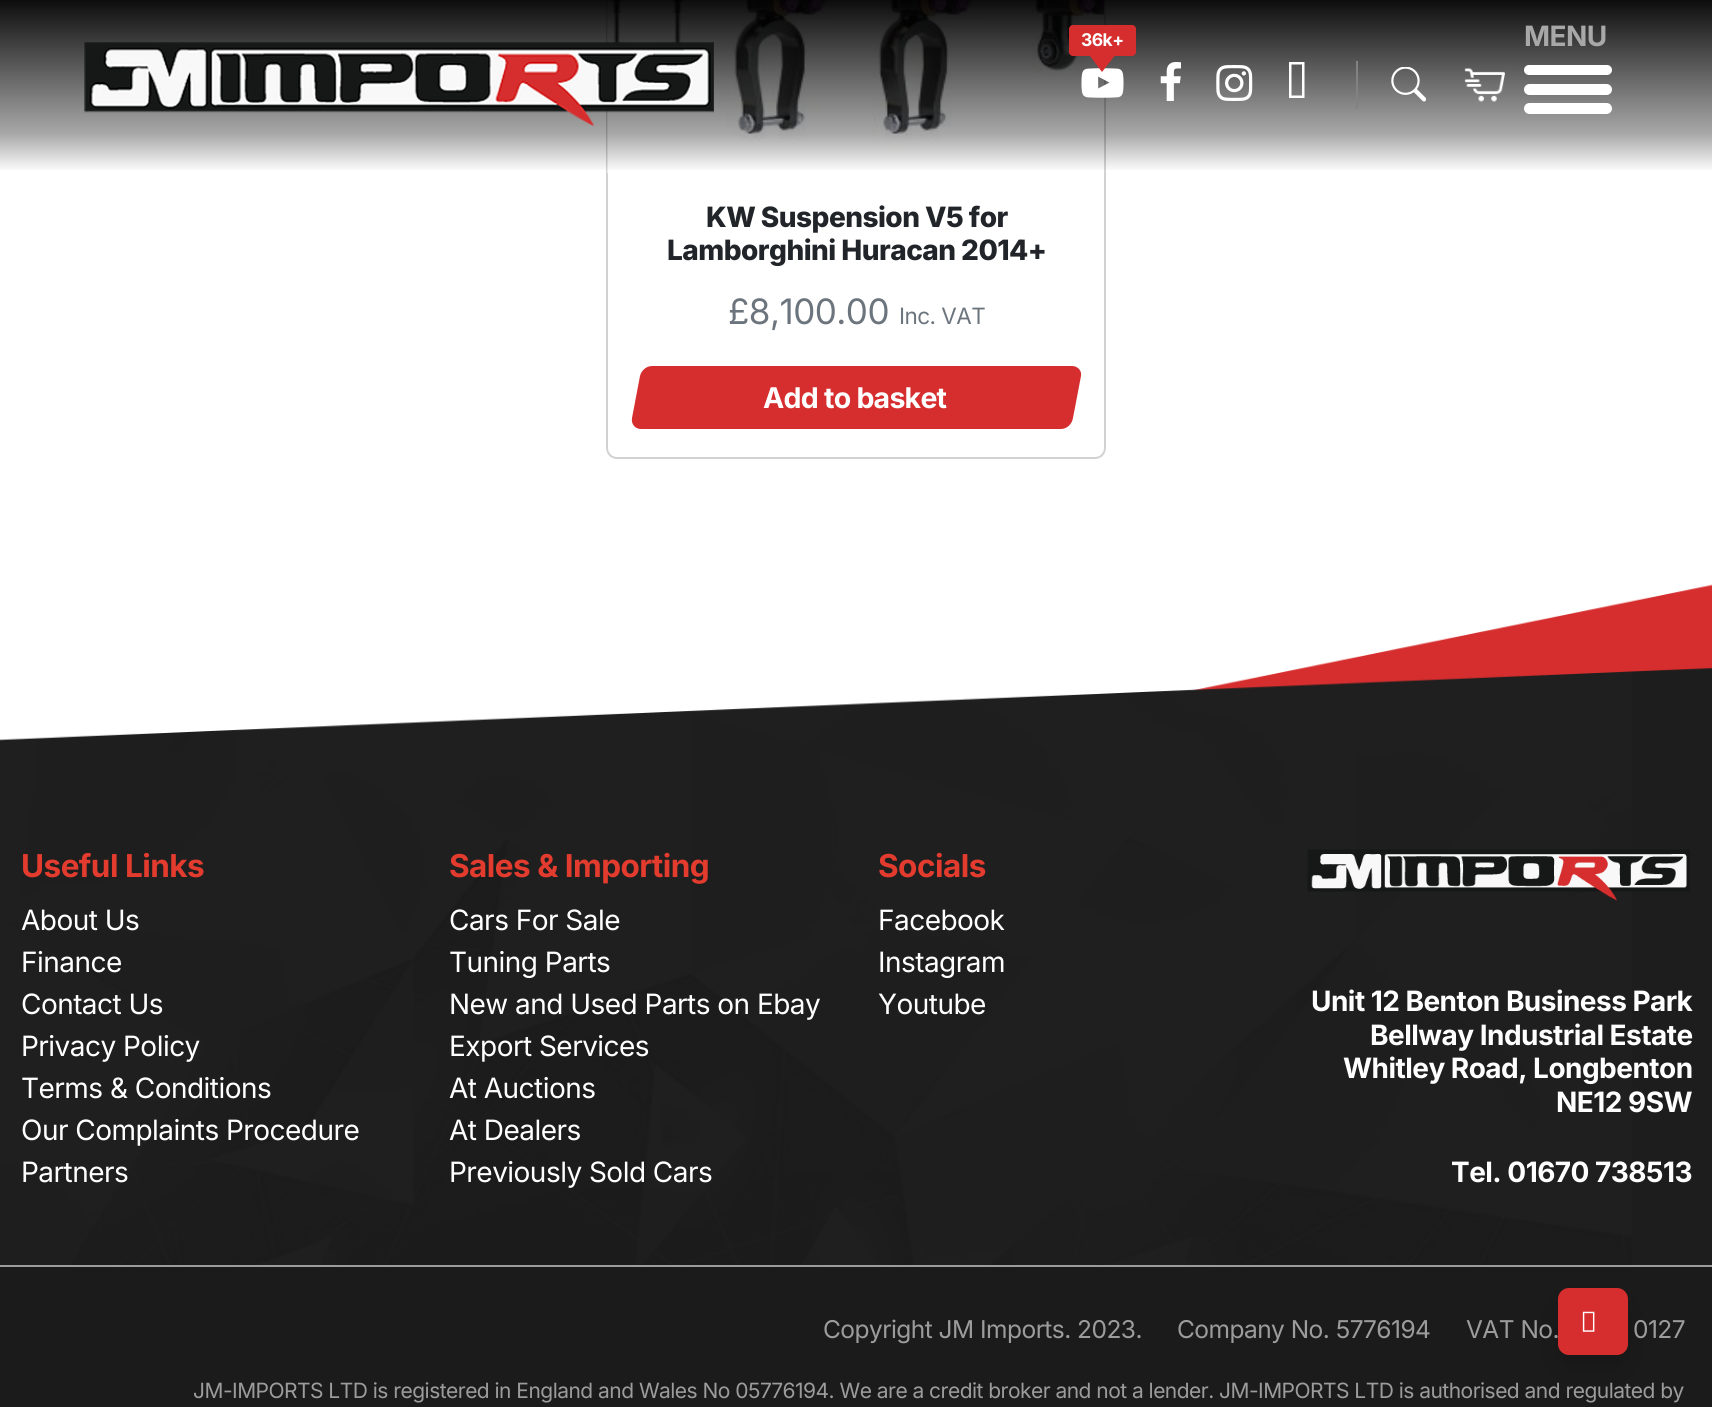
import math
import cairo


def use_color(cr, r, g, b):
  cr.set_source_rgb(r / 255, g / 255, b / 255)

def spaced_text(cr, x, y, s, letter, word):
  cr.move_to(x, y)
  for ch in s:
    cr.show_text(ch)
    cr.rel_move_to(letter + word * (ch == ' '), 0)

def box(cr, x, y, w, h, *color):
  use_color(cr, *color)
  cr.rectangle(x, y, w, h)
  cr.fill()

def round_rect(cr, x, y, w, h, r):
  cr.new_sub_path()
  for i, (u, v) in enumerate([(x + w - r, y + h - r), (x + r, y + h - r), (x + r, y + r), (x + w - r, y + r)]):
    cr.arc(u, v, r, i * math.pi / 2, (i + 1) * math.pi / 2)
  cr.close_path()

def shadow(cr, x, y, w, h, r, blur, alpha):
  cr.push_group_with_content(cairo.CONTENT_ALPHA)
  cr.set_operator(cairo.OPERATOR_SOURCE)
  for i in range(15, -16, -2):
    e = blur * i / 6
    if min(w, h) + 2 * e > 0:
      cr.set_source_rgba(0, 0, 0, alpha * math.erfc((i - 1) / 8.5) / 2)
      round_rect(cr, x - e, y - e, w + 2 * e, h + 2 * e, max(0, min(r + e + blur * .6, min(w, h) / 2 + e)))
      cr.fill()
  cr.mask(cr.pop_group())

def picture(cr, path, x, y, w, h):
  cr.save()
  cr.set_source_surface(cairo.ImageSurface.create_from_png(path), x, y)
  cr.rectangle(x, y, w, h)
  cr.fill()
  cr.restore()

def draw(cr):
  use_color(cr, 255, 255, 255)
  cr.paint()
  round_rect(cr, 607, -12, 498, 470, 10)
  use_color(cr, 210, 210, 210)
  cr.stroke()
  picture(cr, "img_07.png", 607, 0, 498, 173)
  gradient = cairo.LinearGradient(857, 0, 857, 172)
  gradient.add_color_stop_rgba(0, 0, 0, 0, 0.95)
  gradient.add_color_stop_rgba(0.78, 0, 0, 0, 0.34)
  gradient.add_color_stop_rgba(1, 0, 0, 0, 0)
  cr.set_source(gradient)
  cr.rectangle(0, 0, 1712, 170)
  cr.fill()
  use_color(cr, 214, 46, 46)
  round_rect(cr, 1069, 25, 67, 31, 4)
  cr.fill()
  picture(cr, "img_01.png", 1081, 68, 43, 30)
  cr.new_path()
  cr.move_to(1090, 56)
  cr.line_to(1114.5, 56)
  cr.line_to(1102, 72)
  cr.close_path()
  cr.fill()
  picture(cr, "img_02.png", 1160, 62, 21, 39)
  picture(cr, "img_03.png", 1216, 65, 37, 36)
  use_color(cr, 255, 255, 255)
  cr.new_path()
  cr.move_to(1291.5, 95.5)
  cr.line_to(1302, 95.5)
  cr.line_to(1302, 64.5)
  cr.line_to(1291.5, 64.5)
  cr.close_path()
  cr.move_to(1289, 98)
  cr.line_to(1289, 62)
  cr.line_to(1304.5, 62)
  cr.line_to(1304.5, 98)
  cr.close_path()
  cr.fill()
  box(cr, 1356, 61, 2, 48, 132, 130, 129)
  picture(cr, "img_04.png", 1391, 67, 35, 35)
  picture(cr, "img_05.png", 1464, 68, 41, 34)
  use_color(cr, 255, 255, 255)
  round_rect(cr, 1524, 65, 88, 10, 5)
  cr.fill()
  round_rect(cr, 1524, 84, 88, 11, 5.5)
  cr.fill()
  round_rect(cr, 1524, 103, 88, 11, 5.5)
  cr.fill()
  picture(cr, "img_06.png", 84, 42, 630, 84)
  use_color(cr, 214, 46, 46)
  cr.new_path()
  cr.move_to(652, 366)
  cr.line_to(1072, 366)
  cr.curve_to(1078, 366, 1082, 371, 1081, 376)
  cr.line_to(1073, 418)
  cr.curve_to(1072, 424, 1067, 429, 1061, 429)
  cr.line_to(641, 429)
  cr.curve_to(635, 429, 631, 424, 632, 418)
  cr.line_to(640, 376)
  cr.curve_to(641, 371, 646, 366, 652, 366)
  cr.close_path()
  cr.fill()
  picture(cr, "img_08.png", 0, 584, 1712, 681)
  picture(cr, "img_09.png", 1307, 849, 383, 52)
  box(cr, 0, 1267, 1712, 140, 27, 27, 27)
  box(cr, 0, 1265, 1712, 2, 156, 156, 156)
  use_color(cr, 0, 0, 0)
  shadow(cr, 1558, 1302, 70, 67, 11, 14, 0.15)
  use_color(cr, 214, 46, 46)
  round_rect(cr, 1559, 1289, 68, 65, 10)
  cr.fill_preserve()
  cr.stroke()
  picture(cr, "img_10.png", 1582, 1311, 13, 21)
  cr.select_font_face("Inter", cairo.FONT_SLANT_NORMAL, cairo.FONT_WEIGHT_BOLD)
  cr.set_font_size(17.5)
  use_color(cr, 255, 255, 255)
  spaced_text(cr, 1081, 46, "36k+", -0.53, 0)
  cr.set_font_size(28)
  use_color(cr, 169, 168, 168)
  spaced_text(cr, 1524, 46, "MENU", -0.53, 0)
  cr.select_font_face("Inter ExtraBold")
  use_color(cr, 33, 37, 41)
  spaced_text(cr, 706, 227, "KW Suspension V5 for", -0.53, 0)
  spaced_text(cr, 667, 260, "Lamborghini Huracan 2014+", -0.53, 0)
  cr.select_font_face("Inter")
  cr.set_font_size(35)
  use_color(cr, 108, 117, 125)
  spaced_text(cr, 728, 324, "£8,100.00", -0.53, 0)
  cr.set_font_size(22.5)
  spaced_text(cr, 899, 324, "Inc. VAT", -0.53, 0)
  cr.select_font_face("Inter", cairo.FONT_SLANT_NORMAL, cairo.FONT_WEIGHT_BOLD)
  cr.set_font_size(28.5)
  use_color(cr, 255, 255, 255)
  spaced_text(cr, 763, 408, "Add to basket", -0.75, 0)
  cr.set_font_size(31.5)
  use_color(cr, 227, 59, 46)
  spaced_text(cr, 21, 877, "Useful Links", -0.53, 0)
  cr.select_font_face("Inter")
  cr.set_font_size(28)
  use_color(cr, 255, 255, 255)
  spaced_text(cr, 21, 930, "About Us", -0.53, 0)
  spaced_text(cr, 21, 972, "Finance", -0.53, 0)
  spaced_text(cr, 21, 1014, "Contact Us", -0.53, 0)
  spaced_text(cr, 21, 1056, "Privacy Policy", -0.53, 0)
  spaced_text(cr, 21, 1098, "Terms & Conditions", -0.53, 0)
  spaced_text(cr, 21, 1140, "Our Complaints Procedure", -0.53, 0)
  spaced_text(cr, 21, 1182, "Partners", -0.53, 0)
  cr.select_font_face("Inter", cairo.FONT_SLANT_NORMAL, cairo.FONT_WEIGHT_BOLD)
  cr.set_font_size(31.5)
  use_color(cr, 227, 59, 46)
  spaced_text(cr, 449, 877, "Sales & Importing", -0.53, 0)
  cr.select_font_face("Inter")
  cr.set_font_size(28)
  use_color(cr, 255, 255, 255)
  spaced_text(cr, 449, 930, "Cars For Sale", -0.53, 0)
  spaced_text(cr, 449, 972, "Tuning Parts", -0.53, 0)
  spaced_text(cr, 449, 1014, "New and Used Parts on Ebay", -0.53, 0)
  spaced_text(cr, 449, 1056, "Export Services", -0.53, 0)
  spaced_text(cr, 449, 1098, "At Auctions", -0.53, 0)
  spaced_text(cr, 449, 1140, "At Dealers", -0.53, 0)
  spaced_text(cr, 449, 1182, "Previously Sold Cars", -0.53, 0)
  cr.select_font_face("Inter", cairo.FONT_SLANT_NORMAL, cairo.FONT_WEIGHT_BOLD)
  cr.set_font_size(31.5)
  use_color(cr, 227, 59, 46)
  spaced_text(cr, 878, 877, "Socials", -0.53, 0)
  cr.select_font_face("Inter")
  cr.set_font_size(28)
  use_color(cr, 255, 255, 255)
  spaced_text(cr, 878, 930, "Facebook", -0.53, 0)
  spaced_text(cr, 878, 972, "Instagram", -0.53, 0)
  spaced_text(cr, 878, 1014, "Youtube", -0.53, 0)
  cr.select_font_face("Inter", cairo.FONT_SLANT_NORMAL, cairo.FONT_WEIGHT_BOLD)
  spaced_text(cr, 1311, 1011, "Unit 12 Benton Business Park", -0.53, 0)
  spaced_text(cr, 1370, 1045, "Bellway Industrial Estate", -0.53, 0)
  spaced_text(cr, 1343, 1078, "Whitley Road, Longbenton", -0.53, 0)
  spaced_text(cr, 1556, 1112, "NE12 9SW", -0.53, 0)
  spaced_text(cr, 1451, 1182, "Tel. 01670 738513", -0.53, 0)
  cr.select_font_face("Inter")
  cr.set_font_size(24.5)
  use_color(cr, 156, 156, 156)
  spaced_text(cr, 823, 1338, "Copyright JM Imports. 2023.", -0.53, 0)
  spaced_text(cr, 1177, 1338, "Company No. 5776194", -0.53, 0)
  spaced_text(cr, 1466, 1338, "VAT No.", -0.53, 0)
  spaced_text(cr, 1633, 1338, "0127", -0.53, 0)
  cr.set_font_size(21)
  spaced_text(cr, 193, 1398, "JM-IMPORTS LTD is registered in England and Wales No 05776194. We are a credit broker and not a lender. JM-IMPORTS LTD is authorised and regulated by", -0.53, 0)


surface = cairo.ImageSurface(cairo.FORMAT_RGB24, 1712, 1407)
cr = cairo.Context(surface)
options = cairo.FontOptions()
options.set_hint_metrics(cairo.HINT_METRICS_OFF)
options.set_hint_style(cairo.HINT_STYLE_NONE)
cr.set_font_options(options)
cr.set_miter_limit(4)
draw(cr)
surface.write_to_png("out.png")
